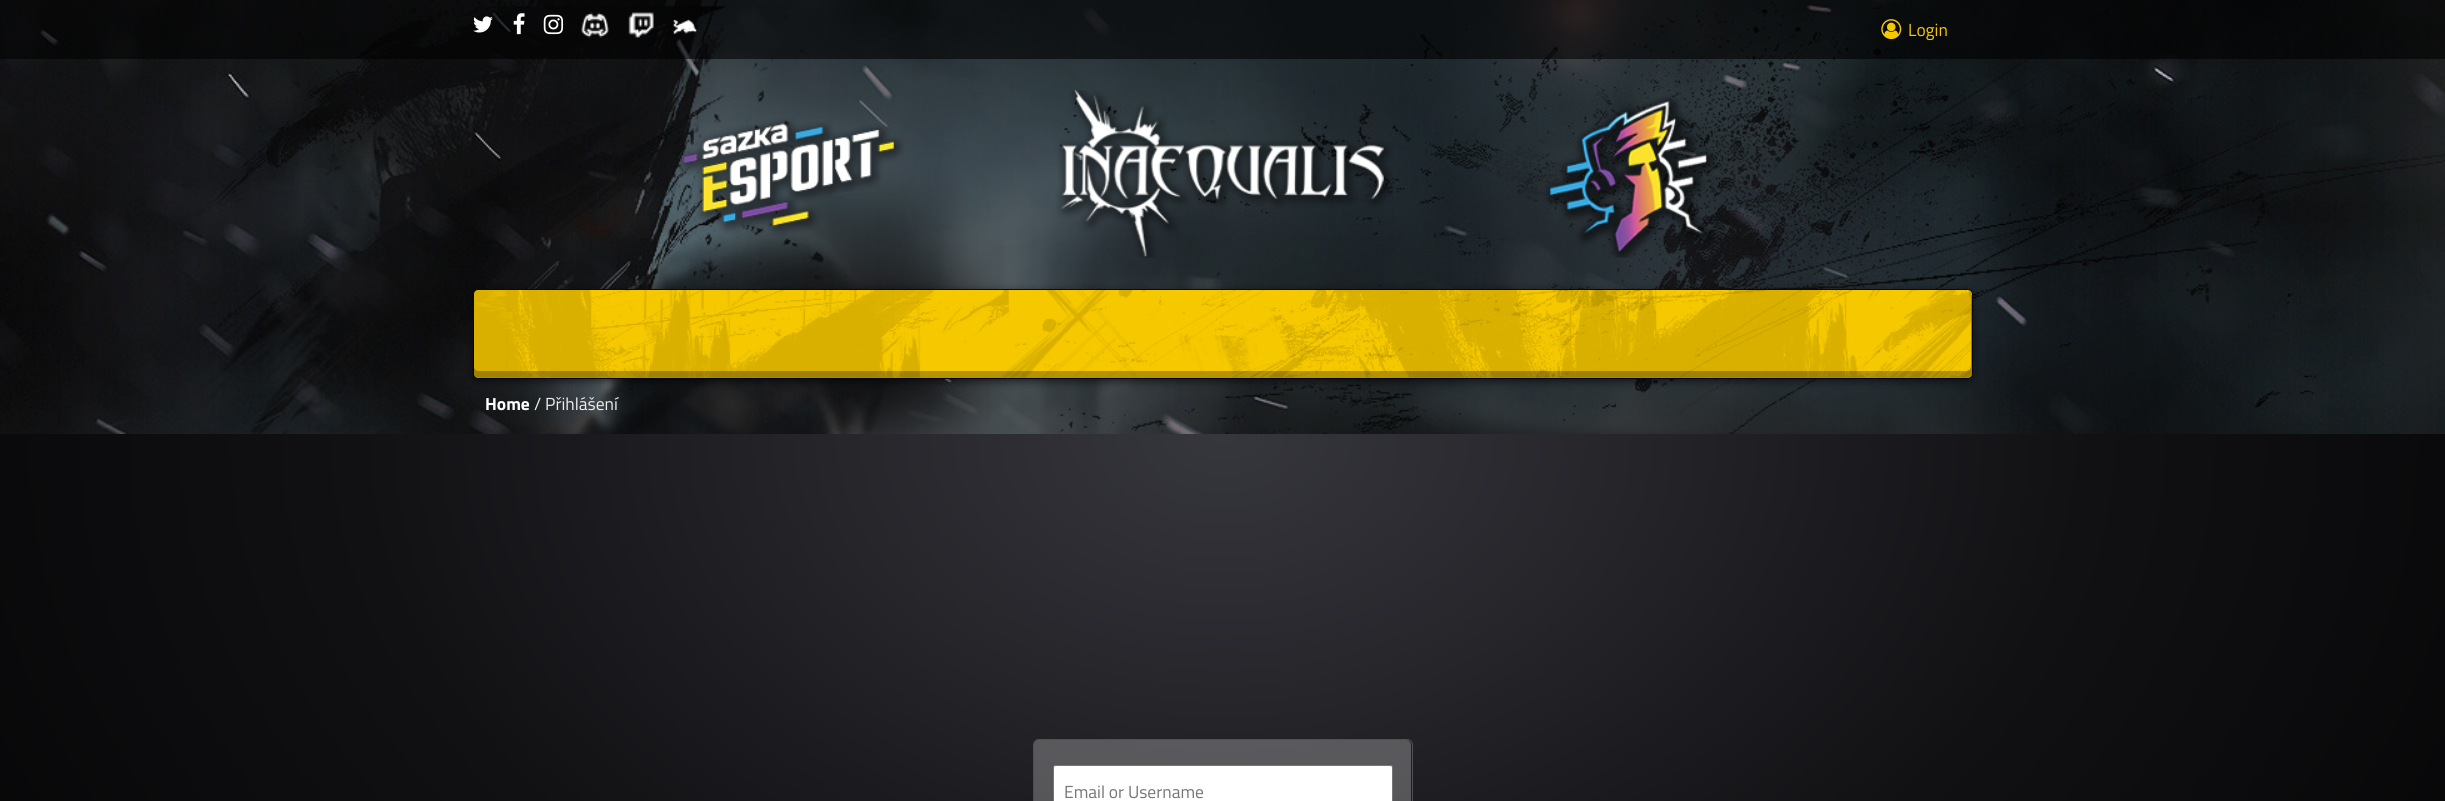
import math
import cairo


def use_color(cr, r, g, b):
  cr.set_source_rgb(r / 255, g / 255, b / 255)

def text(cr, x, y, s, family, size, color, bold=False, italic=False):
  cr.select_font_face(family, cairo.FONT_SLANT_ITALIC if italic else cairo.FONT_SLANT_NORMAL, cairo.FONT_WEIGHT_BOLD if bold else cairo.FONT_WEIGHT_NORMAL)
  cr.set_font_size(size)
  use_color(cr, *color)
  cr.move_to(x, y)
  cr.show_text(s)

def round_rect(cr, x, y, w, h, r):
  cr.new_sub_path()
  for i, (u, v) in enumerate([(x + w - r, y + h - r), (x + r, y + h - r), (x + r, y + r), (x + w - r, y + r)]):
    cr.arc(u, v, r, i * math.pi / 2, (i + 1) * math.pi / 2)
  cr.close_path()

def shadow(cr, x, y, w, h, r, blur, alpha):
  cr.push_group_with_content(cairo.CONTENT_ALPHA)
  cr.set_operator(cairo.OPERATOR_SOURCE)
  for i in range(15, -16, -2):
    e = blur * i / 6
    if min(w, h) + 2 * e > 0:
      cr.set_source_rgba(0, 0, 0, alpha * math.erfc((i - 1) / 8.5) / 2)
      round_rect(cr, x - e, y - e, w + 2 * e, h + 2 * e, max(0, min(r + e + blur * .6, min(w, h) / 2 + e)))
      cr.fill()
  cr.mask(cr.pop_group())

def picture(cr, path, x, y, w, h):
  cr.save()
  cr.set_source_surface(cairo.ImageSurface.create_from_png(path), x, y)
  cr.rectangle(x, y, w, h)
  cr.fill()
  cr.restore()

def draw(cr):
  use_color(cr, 255, 255, 255)
  cr.paint()
  picture(cr, "img_01.png", 0, 0, 2445, 434)
  cr.set_source_rgba(0, 0, 0, 0.6)
  cr.rectangle(0, 0, 2445, 59)
  cr.fill()
  picture(cr, "img_02.png", 473, 16, 20, 17)
  picture(cr, "img_03.png", 513, 13, 12, 22)
  picture(cr, "img_04.png", 543, 14, 21, 21)
  picture(cr, "img_05.png", 581, 12, 28, 26)
  picture(cr, "img_06.png", 628, 12, 26, 26)
  picture(cr, "img_07.png", 673, 19, 24, 15)
  picture(cr, "img_08.png", 1881, 19, 21, 21)
  picture(cr, "img_09.png", 679, 90, 1038, 168)
  use_color(cr, 246, 200, 0)
  round_rect(cr, 473.5, 289.5, 1499, 89, 4.5)
  cr.fill_preserve()
  use_color(cr, 8, 8, 8)
  cr.set_line_width(1)
  cr.stroke()
  cr.save()
  cr.set_fill_rule(cairo.FILL_RULE_EVEN_ODD)
  cr.new_path()
  cr.move_to(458, 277)
  cr.line_to(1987, 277)
  cr.line_to(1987, 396)
  cr.line_to(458, 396)
  cr.close_path()
  cr.move_to(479, 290)
  cr.line_to(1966, 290)
  cr.curve_to(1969, 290, 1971, 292, 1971, 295)
  cr.line_to(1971, 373)
  cr.curve_to(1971, 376, 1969, 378, 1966, 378)
  cr.line_to(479, 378)
  cr.curve_to(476, 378, 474, 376, 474, 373)
  cr.line_to(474, 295)
  cr.curve_to(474, 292, 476, 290, 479, 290)
  cr.close_path()
  cr.clip()
  use_color(cr, 0, 0, 0)
  shadow(cr, 474, 293, 1497, 87, 5, 5, 0.75)
  cr.restore()
  picture(cr, "img_10.png", 474, 290, 1498, 88)
  cr.set_source_rgba(0, 0, 0, 0.26)
  cr.new_path()
  cr.move_to(474, 366)
  cr.line_to(474, 373)
  cr.curve_to(474, 376, 476, 378, 479, 378)
  cr.line_to(1966, 378)
  cr.curve_to(1969, 378, 1971, 376, 1971, 373)
  cr.line_to(1971, 366)
  cr.curve_to(1971, 369, 1969, 371, 1966, 371)
  cr.line_to(479, 371)
  cr.curve_to(476, 371, 474, 369, 474, 366)
  cr.close_path()
  cr.fill()
  gradient = cairo.RadialGradient(0, 0, 0, 0, 0, 1)
  gradient.set_matrix(cairo.Matrix(1 / 1729, 0, 0, 1 / 1199, -1 * 1223 / 1729, -1 * 434 / 1199))
  gradient.add_color_stop_rgba(0, 0.212, 0.212, 0.239, 1)
  gradient.add_color_stop_rgba(0.5, 0.067, 0.067, 0.078, 1)
  gradient.add_color_stop_rgba(1, 0, 0, 0, 1)
  cr.set_source(gradient)
  cr.rectangle(0, 434, 2445, 367)
  cr.fill()
  round_rect(cr, 1033.5, 739.5, 379, 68, 5.5)
  cr.set_source_rgba(0.882, 0.882, 0.882, 0.25)
  cr.stroke()
  cr.set_source_rgba(1, 1, 1, 0.25)
  round_rect(cr, 1034, 740, 377, 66, 5)
  cr.fill()
  use_color(cr, 255, 255, 255)
  round_rect(cr, 1053.5, 765.5, 339, 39, 2)
  cr.fill_preserve()
  use_color(cr, 118, 118, 118)
  cr.stroke()
  text(cr, 1908, 36, "Login", "Titillium Web", 17.5, (246, 200, 0))
  text(cr, 485, 410, "Home", "Titillium Web", 17.5, (255, 255, 255), bold=True)
  text(cr, 534, 410, "/ Přihlášení", "Titillium Web", 17.5, (238, 238, 238))
  text(cr, 1064, 798, "Email or Username", "Titillium Web", 17.5, (117, 117, 117))


surface = cairo.ImageSurface(cairo.FORMAT_RGB24, 2445, 801)
cr = cairo.Context(surface)
options = cairo.FontOptions()
options.set_hint_metrics(cairo.HINT_METRICS_OFF)
options.set_hint_style(cairo.HINT_STYLE_NONE)
cr.set_font_options(options)
cr.set_miter_limit(4)
draw(cr)
surface.write_to_png("out.png")
